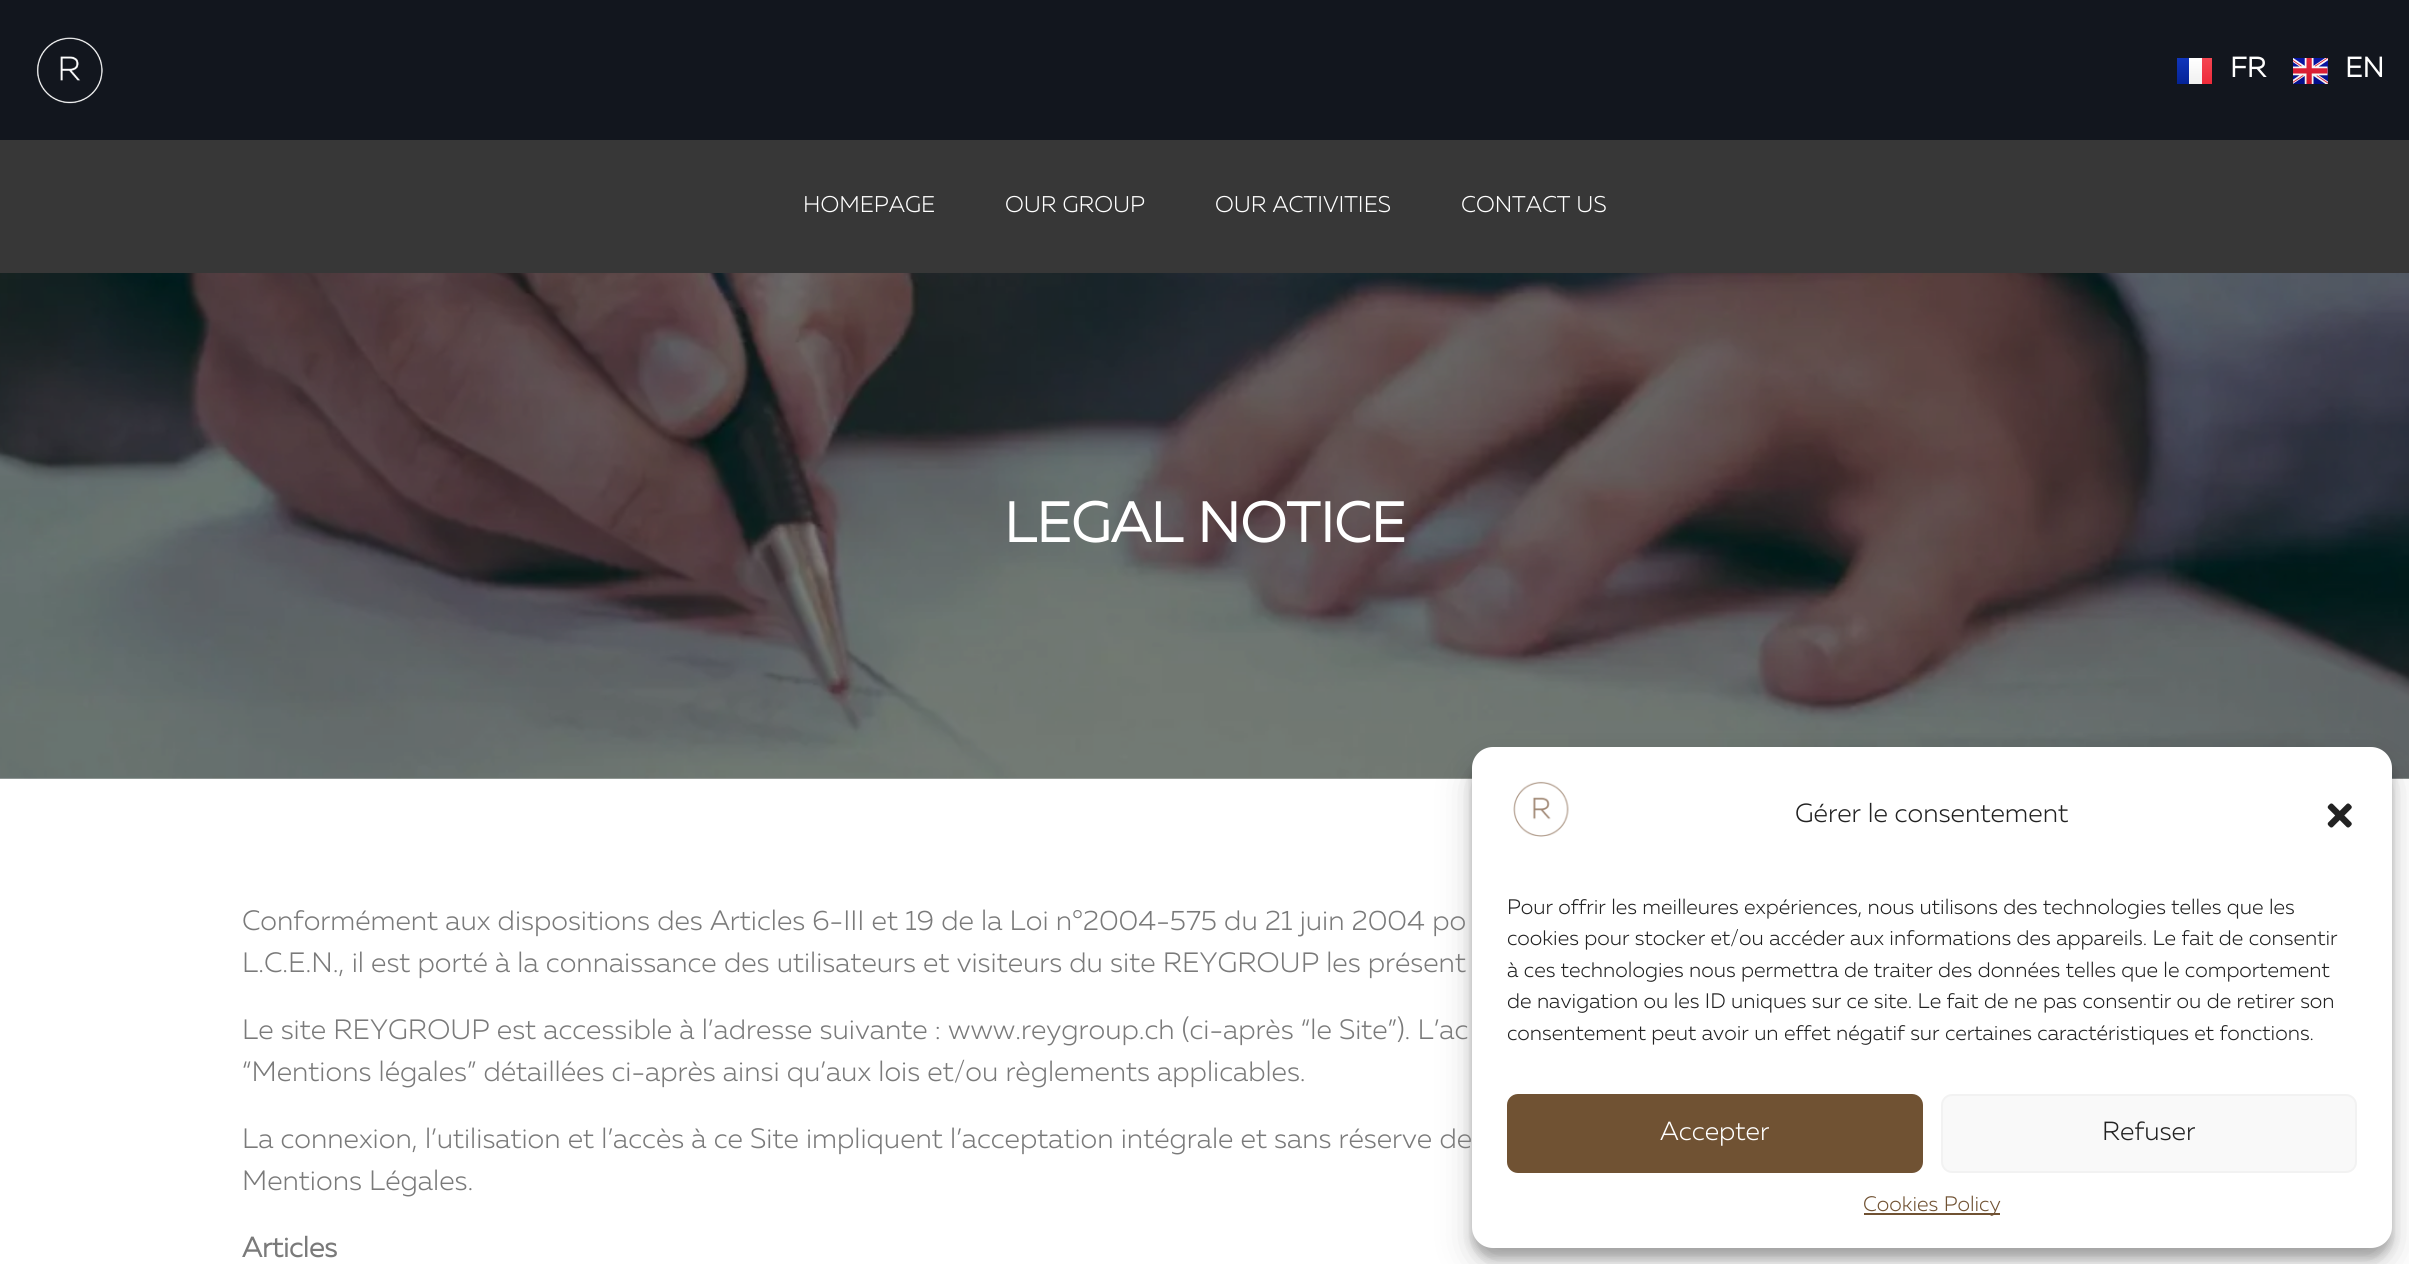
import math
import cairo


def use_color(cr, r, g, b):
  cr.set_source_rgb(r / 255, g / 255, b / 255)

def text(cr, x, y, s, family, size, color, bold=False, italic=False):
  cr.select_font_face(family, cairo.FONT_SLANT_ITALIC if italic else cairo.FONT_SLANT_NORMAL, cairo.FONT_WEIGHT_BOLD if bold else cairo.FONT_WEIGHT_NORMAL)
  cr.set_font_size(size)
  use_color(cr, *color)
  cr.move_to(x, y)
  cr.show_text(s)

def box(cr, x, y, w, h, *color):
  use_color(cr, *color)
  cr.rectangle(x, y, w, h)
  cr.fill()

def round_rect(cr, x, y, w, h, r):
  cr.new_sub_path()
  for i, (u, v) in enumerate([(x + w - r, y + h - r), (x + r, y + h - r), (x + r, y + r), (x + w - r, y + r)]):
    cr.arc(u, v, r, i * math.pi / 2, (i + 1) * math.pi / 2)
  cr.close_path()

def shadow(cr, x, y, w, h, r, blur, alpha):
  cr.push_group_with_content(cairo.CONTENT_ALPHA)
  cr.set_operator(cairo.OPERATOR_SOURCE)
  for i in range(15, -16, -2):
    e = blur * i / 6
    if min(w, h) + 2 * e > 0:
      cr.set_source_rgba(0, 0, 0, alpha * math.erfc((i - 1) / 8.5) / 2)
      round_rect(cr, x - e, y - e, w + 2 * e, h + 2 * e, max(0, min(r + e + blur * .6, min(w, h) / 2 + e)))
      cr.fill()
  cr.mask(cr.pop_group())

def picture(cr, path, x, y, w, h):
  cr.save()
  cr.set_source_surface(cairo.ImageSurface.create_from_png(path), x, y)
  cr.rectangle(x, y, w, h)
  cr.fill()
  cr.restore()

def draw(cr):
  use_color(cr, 255, 255, 255)
  cr.paint()
  box(cr, 0, 0, 2409, 140, 18, 22, 30)
  picture(cr, "img_01.png", 36, 37, 67, 67)
  gradient = cairo.LinearGradient(2183, 58, 2183, 84)
  gradient.add_color_stop_rgba(0, 0.063, 0.208, 0.733, 1)
  gradient.add_color_stop_rgba(1, 0.016, 0.137, 0.588, 1)
  cr.set_source(gradient)
  cr.rectangle(2177, 58, 12, 26)
  cr.fill()
  gradient = cairo.LinearGradient(2195, 58, 2195, 84)
  gradient.add_color_stop_rgba(0, 1, 1, 1, 1)
  gradient.add_color_stop_rgba(1, 0.941, 0.941, 0.941, 1)
  cr.set_source(gradient)
  cr.rectangle(2189, 58, 13, 26)
  cr.fill()
  gradient = cairo.LinearGradient(2204, 58, 2204, 84)
  gradient.add_color_stop_rgba(0, 0.957, 0.275, 0.325, 1)
  gradient.add_color_stop_rgba(1, 0.933, 0.165, 0.224, 1)
  cr.set_source(gradient)
  cr.rectangle(2202, 58, 10, 26)
  cr.fill()
  picture(cr, "img_02.png", 2293, 58, 35, 26)
  box(cr, 0, 140, 2409, 133, 55, 55, 55)
  picture(cr, "img_03.png", 0, 273, 2409, 506)
  use_color(cr, 0, 0, 0)
  shadow(cr, 1472, 758, 920, 500, 21, 5, 0.23)
  shadow(cr, 1472, 765, 920, 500, 21, 17.5, 0.19)
  use_color(cr, 255, 255, 255)
  round_rect(cr, 1472, 747, 920, 501, 21)
  cr.fill()
  picture(cr, "img_04.png", 1513, 781, 56, 56)
  picture(cr, "img_05.png", 2327, 803, 25, 25)
  use_color(cr, 112, 82, 51)
  round_rect(cr, 1508, 1095, 414, 77, 10)
  cr.fill_preserve()
  cr.stroke()
  use_color(cr, 249, 249, 249)
  round_rect(cr, 1942, 1095, 414, 77, 10)
  cr.fill_preserve()
  use_color(cr, 242, 242, 242)
  cr.stroke()
  box(cr, 1864, 1213, 136, 2, 112, 82, 51)
  text(cr, 2230, 77, "FR", "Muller", 28, (255, 255, 255), bold=True)
  text(cr, 2345, 77, "EN", "Muller", 28, (255, 255, 255), bold=True)
  text(cr, 803, 212, "HOMEPAGE", "Muller Light", 22.75, (255, 255, 255))
  text(cr, 1005, 212, "OUR GROUP", "Muller Light", 22.75, (255, 255, 255))
  text(cr, 1215, 212, "OUR ACTIVITIES", "Muller Light", 22.75, (255, 255, 255))
  text(cr, 1461, 212, "CONTACT US", "Muller Light", 22.75, (255, 255, 255))
  text(cr, 1004, 542, "LEGAL NOTICE", "Muller", 56, (255, 255, 255), bold=True)
  text(cr, 242, 930, "Conformément aux dispositions des Articles 6-III et 19 de la Loi n°2004-575 du 21 juin 2004 po", "Muller Light", 28, (122, 122, 122))
  text(cr, 242, 972, "L.C.E.N., il est porté à la connaissance des utilisateurs et visiteurs du site REYGROUP les présent", "Muller Light", 28, (122, 122, 122))
  text(cr, 242, 1039, "Le site REYGROUP est accessible à l’adresse suivante : www.reygroup.ch (ci-après “le Site”). L’ac", "Muller Light", 28, (122, 122, 122))
  text(cr, 242, 1081, "“Mentions légales” détaillées ci-après ainsi qu’aux lois et/ou règlements applicables.", "Muller Light", 28, (122, 122, 122))
  text(cr, 242, 1148, "La connexion, l’utilisation et l’accès à ce Site impliquent l’acceptation intégrale et sans réserve de", "Muller Light", 28, (122, 122, 122))
  text(cr, 242, 1190, "Mentions Légales.", "Muller Light", 28, (122, 122, 122))
  text(cr, 242, 1257, "Articles", "Muller", 28, (122, 122, 122), bold=True)
  text(cr, 1795, 822, "Gérer le consentement", "Muller Light", 26.25, (34, 34, 34))
  text(cr, 1507, 914, "Pour offrir les meilleures expériences, nous utilisons des technologies telles que les", "Muller Light", 21, (34, 34, 34))
  text(cr, 1507, 945, "cookies pour stocker et/ou accéder aux informations des appareils. Le fait de consentir", "Muller Light", 21, (34, 34, 34))
  text(cr, 1507, 977, "à ces technologies nous permettra de traiter des données telles que le comportement", "Muller Light", 21, (34, 34, 34))
  text(cr, 1507, 1008, "de navigation ou les ID uniques sur ce site. Le fait de ne pas consentir ou de retirer son", "Muller Light", 21, (34, 34, 34))
  text(cr, 1507, 1040, "consentement peut avoir un effet négatif sur certaines caractéristiques et fonctions.", "Muller Light", 21, (34, 34, 34))
  text(cr, 1660, 1140, "Accepter", "Muller Light", 26.25, (255, 255, 255))
  text(cr, 2102, 1140, "Refuser", "Muller Light", 26.25, (34, 34, 34))
  text(cr, 1863, 1211, "Cookies Policy", "Muller Light", 21, (112, 82, 51))


surface = cairo.ImageSurface(cairo.FORMAT_RGB24, 2409, 1264)
cr = cairo.Context(surface)
options = cairo.FontOptions()
options.set_hint_metrics(cairo.HINT_METRICS_OFF)
options.set_hint_style(cairo.HINT_STYLE_NONE)
cr.set_font_options(options)
cr.set_miter_limit(4)
draw(cr)
surface.write_to_png("out.png")
